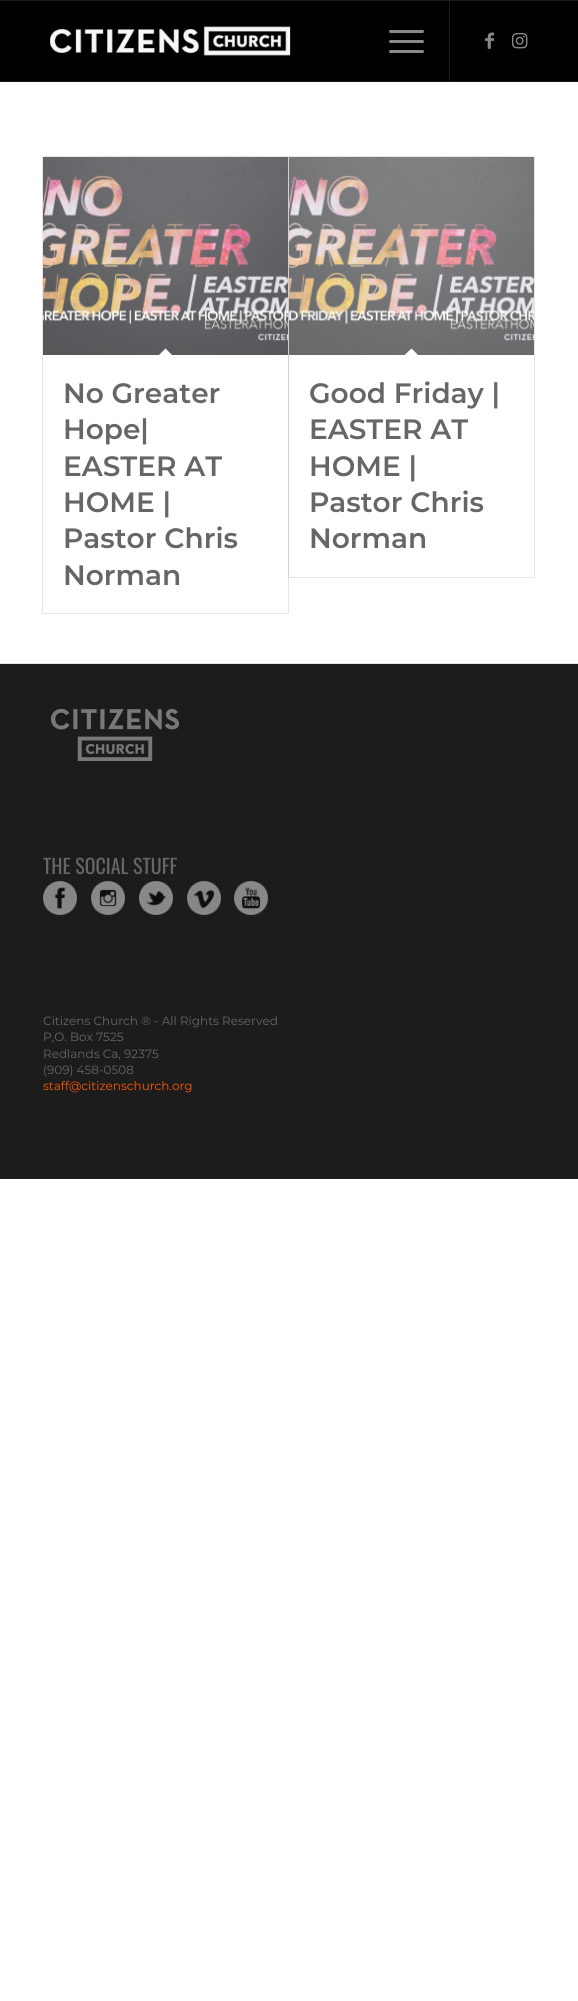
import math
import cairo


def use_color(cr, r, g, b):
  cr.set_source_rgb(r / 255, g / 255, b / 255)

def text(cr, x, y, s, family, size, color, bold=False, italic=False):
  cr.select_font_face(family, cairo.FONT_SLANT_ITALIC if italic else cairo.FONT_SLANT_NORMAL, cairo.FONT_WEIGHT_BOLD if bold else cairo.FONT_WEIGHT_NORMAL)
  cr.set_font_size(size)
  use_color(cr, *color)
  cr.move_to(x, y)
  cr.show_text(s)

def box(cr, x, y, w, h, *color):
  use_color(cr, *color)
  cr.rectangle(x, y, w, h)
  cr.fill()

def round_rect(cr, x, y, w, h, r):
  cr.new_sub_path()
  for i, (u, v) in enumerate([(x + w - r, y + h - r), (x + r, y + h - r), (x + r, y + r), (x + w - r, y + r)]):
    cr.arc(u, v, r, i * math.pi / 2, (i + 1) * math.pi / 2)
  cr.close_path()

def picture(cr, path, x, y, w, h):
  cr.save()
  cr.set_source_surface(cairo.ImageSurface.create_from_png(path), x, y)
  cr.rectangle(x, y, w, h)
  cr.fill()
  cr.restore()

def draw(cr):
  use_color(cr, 255, 255, 255)
  cr.paint()
  box(cr, 0, 0, 578, 1, 28, 28, 29)
  box(cr, 0, 81, 578, 1, 28, 28, 29)
  box(cr, 0, 1, 578, 80, 0, 0, 0)
  picture(cr, "img_01.png", 50, 26, 241, 30)
  box(cr, 449, 1, 1, 80, 28, 28, 29)
  use_color(cr, 137, 137, 138)
  round_rect(cr, 389, 40, 35, 3, 1.5)
  cr.fill()
  round_rect(cr, 389, 30, 35, 3, 1.5)
  cr.fill()
  round_rect(cr, 389, 50, 35, 3, 1.5)
  cr.fill()
  picture(cr, "img_02.png", 485, 32, 9, 17)
  picture(cr, "img_03.png", 512, 33, 16, 16)
  cr.rectangle(42.5, 156.5, 246, 457)
  use_color(cr, 230, 230, 230)
  cr.set_line_width(1)
  cr.stroke()
  picture(cr, "img_04.png", 43, 157, 245, 198)
  use_color(cr, 255, 255, 255)
  cr.new_path()
  cr.move_to(165.5, 348.5)
  cr.line_to(172.5, 355.5)
  cr.line_to(165.5, 363)
  cr.line_to(158.5, 355.5)
  cr.close_path()
  cr.fill()
  cr.rectangle(288.5, 156.5, 246, 421)
  cr.set_source_rgba(0, 0, 0, 0.1)
  cr.stroke()
  picture(cr, "img_05.png", 289, 157, 245, 198)
  use_color(cr, 255, 255, 255)
  cr.new_path()
  cr.move_to(411.5, 348.5)
  cr.line_to(418.5, 355.5)
  cr.line_to(411.5, 363)
  cr.line_to(404, 355.5)
  cr.close_path()
  cr.fill()
  box(cr, 0, 664, 578, 515, 28, 28, 29)
  box(cr, 0, 663, 578, 1, 225, 225, 225)
  picture(cr, "img_06.png", 51, 709, 128, 52)
  picture(cr, "img_07.png", 43, 881, 34, 34)
  picture(cr, "img_08.png", 91, 881, 34, 34)
  picture(cr, "img_09.png", 139, 881, 34, 34)
  picture(cr, "img_10.png", 187, 881, 34, 34)
  picture(cr, "img_11.png", 234, 881, 34, 34)
  text(cr, 63, 403, "No Greater", "Montserrat SemiBold", 28, (102, 102, 102))
  text(cr, 63, 439, "Hope|", "Montserrat SemiBold", 28, (102, 102, 102))
  text(cr, 63, 476, "EASTER AT", "Montserrat SemiBold", 28, (102, 102, 102))
  text(cr, 63, 512, "HOME |", "Montserrat SemiBold", 28, (102, 102, 102))
  text(cr, 63, 548, "Pastor Chris", "Montserrat SemiBold", 28, (102, 102, 102))
  text(cr, 63, 585, "Norman", "Montserrat SemiBold", 28, (102, 102, 102))
  text(cr, 309, 403, "Good Friday |", "Montserrat SemiBold", 28, (102, 102, 102))
  text(cr, 309, 439, "EASTER AT", "Montserrat SemiBold", 28, (102, 102, 102))
  text(cr, 309, 476, "HOME |", "Montserrat SemiBold", 28, (102, 102, 102))
  text(cr, 309, 512, "Pastor Chris", "Montserrat SemiBold", 28, (102, 102, 102))
  text(cr, 309, 548, "Norman", "Montserrat SemiBold", 28, (102, 102, 102))
  text(cr, 43, 874, "THE SOCIAL STUFF", "Oswald", 20, (102, 102, 102))
  text(cr, 43, 1025, "Citizens Church ® - All Rights Reserved", "Montserrat", 12, (102, 102, 102))
  text(cr, 43, 1041, "P,O. Box 7525", "Montserrat", 12, (102, 102, 102))
  text(cr, 43, 1058, "Redlands Ca, 92375", "Montserrat", 12, (102, 102, 102))
  text(cr, 43, 1074, "(909) 458-0508", "Montserrat", 12, (102, 102, 102))
  text(cr, 43, 1090, "staff@citizenschurch.org", "Montserrat", 12, (255, 89, 0))


surface = cairo.ImageSurface(cairo.FORMAT_RGB24, 578, 2001)
cr = cairo.Context(surface)
options = cairo.FontOptions()
options.set_hint_metrics(cairo.HINT_METRICS_OFF)
options.set_hint_style(cairo.HINT_STYLE_NONE)
cr.set_font_options(options)
cr.set_miter_limit(4)
draw(cr)
surface.write_to_png("out.png")
